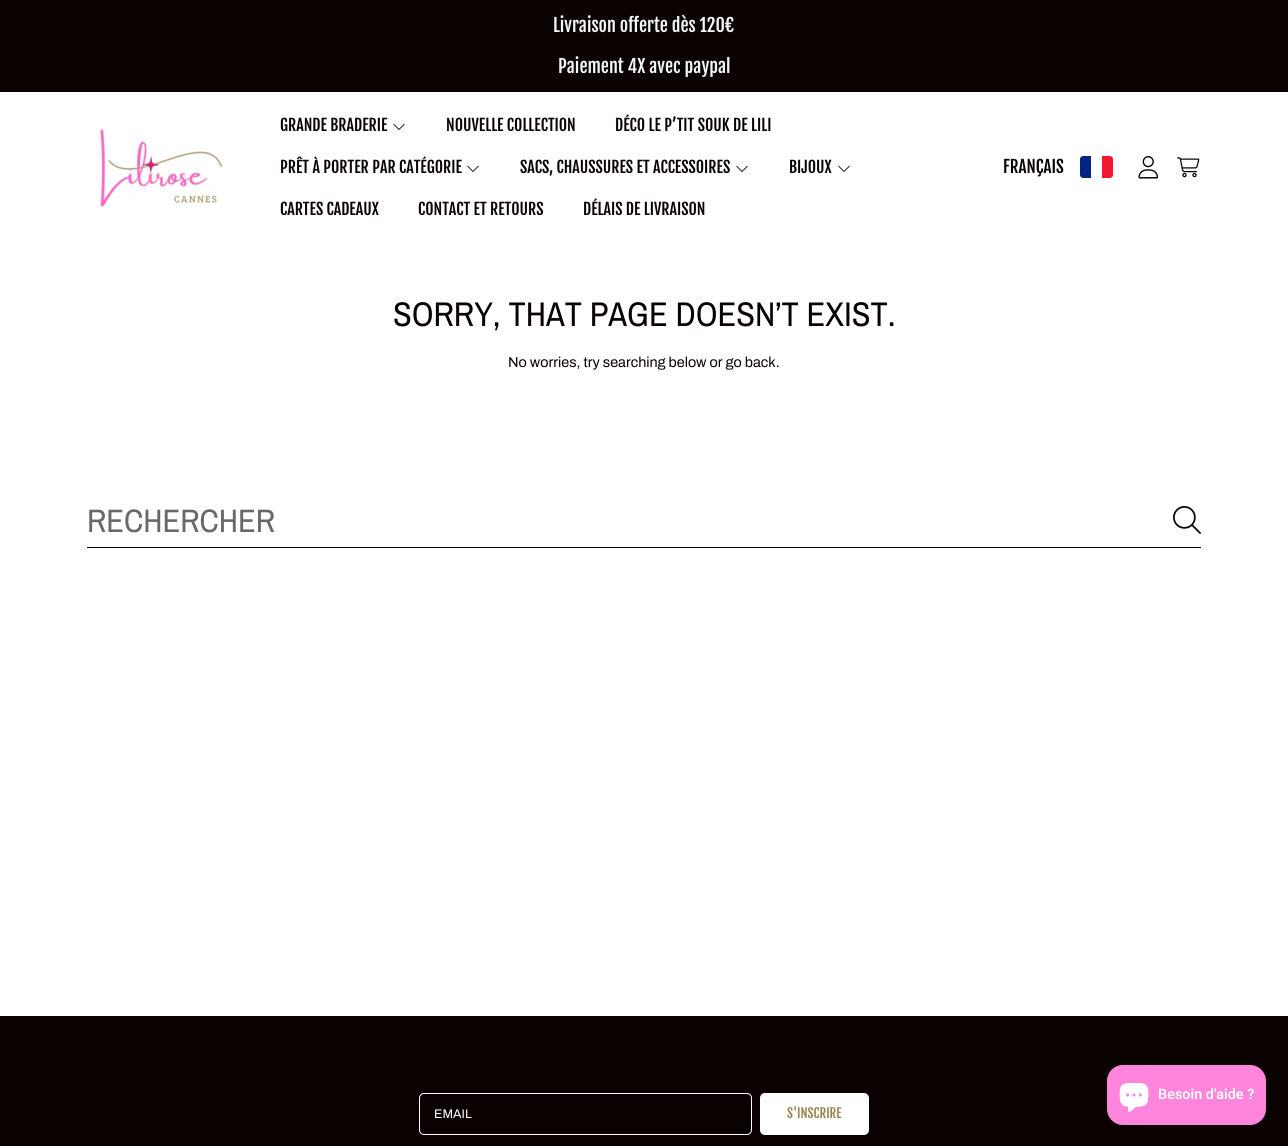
import math
import cairo


def use_color(cr, r, g, b):
  cr.set_source_rgb(r / 255, g / 255, b / 255)

def text(cr, x, y, s, family, size, color, bold=False, italic=False):
  cr.select_font_face(family, cairo.FONT_SLANT_ITALIC if italic else cairo.FONT_SLANT_NORMAL, cairo.FONT_WEIGHT_BOLD if bold else cairo.FONT_WEIGHT_NORMAL)
  cr.set_font_size(size)
  use_color(cr, *color)
  cr.move_to(x, y)
  cr.show_text(s)

def box(cr, x, y, w, h, *color):
  use_color(cr, *color)
  cr.rectangle(x, y, w, h)
  cr.fill()

def round_rect(cr, x, y, w, h, r):
  cr.new_sub_path()
  for i, (u, v) in enumerate([(x + w - r, y + h - r), (x + r, y + h - r), (x + r, y + r), (x + w - r, y + r)]):
    cr.arc(u, v, r, i * math.pi / 2, (i + 1) * math.pi / 2)
  cr.close_path()

def picture(cr, path, x, y, w, h):
  cr.save()
  cr.set_source_surface(cairo.ImageSurface.create_from_png(path), x, y)
  cr.rectangle(x, y, w, h)
  cr.fill()
  cr.restore()

def draw(cr):
  use_color(cr, 255, 255, 255)
  cr.paint()
  box(cr, 0, 0, 1288, 92, 10, 1, 1)
  picture(cr, "img_01.png", 98, 128, 125, 81)
  picture(cr, "img_02.png", 393, 123, 12, 7)
  picture(cr, "img_02.png", 467, 165, 12, 7)
  picture(cr, "img_02.png", 736, 165, 12, 7)
  picture(cr, "img_02.png", 838, 165, 12, 7)
  use_color(cr, 0, 38, 127)
  cr.new_path()
  cr.move_to(1083, 156)
  cr.line_to(1091, 156)
  cr.line_to(1091, 178)
  cr.line_to(1083, 178)
  cr.curve_to(1081.5, 178, 1080, 176.5, 1080, 175)
  cr.line_to(1080, 159)
  cr.curve_to(1080, 157.5, 1081.5, 156, 1083, 156)
  cr.close_path()
  cr.fill()
  use_color(cr, 243, 24, 48)
  cr.new_path()
  cr.move_to(1102, 156)
  cr.line_to(1110, 156)
  cr.curve_to(1111.5, 156, 1113, 157.5, 1113, 159)
  cr.line_to(1113, 175)
  cr.curve_to(1113, 176.5, 1111.5, 178, 1110, 178)
  cr.line_to(1102, 178)
  cr.close_path()
  cr.fill()
  picture(cr, "img_03.png", 1138, 156, 21, 23)
  picture(cr, "img_04.png", 1177, 157, 23, 21)
  box(cr, 87, 547, 1114, 1, 10, 1, 1)
  picture(cr, "img_05.png", 1173, 506, 28, 28)
  box(cr, 0, 1016, 1288, 130, 10, 1, 1)
  round_rect(cr, 419.5, 1093.5, 332, 41, 4.5)
  use_color(cr, 255, 255, 255)
  cr.set_line_width(1)
  cr.stroke()
  round_rect(cr, 760, 1093, 109, 42, 5)
  cr.fill()
  use_color(cr, 255, 133, 220)
  round_rect(cr, 1107, 1065, 159, 60, 16)
  cr.fill()
  picture(cr, "img_06.png", 1119, 1083, 30, 29)
  text(cr, 553, 32, "Livraison offerte dès 120€", "Fjalla One", 18.1, (243, 246, 249))
  text(cr, 558, 73, "Paiement 4X avec paypal", "Fjalla One", 18.1, (243, 246, 249))
  text(cr, 280, 131, "GRANDE BRADERIE", "Fjalla One", 15.9, (10, 1, 1))
  text(cr, 446, 131, "NOUVELLE COLLECTION", "Fjalla One", 15.9, (10, 1, 1))
  text(cr, 615, 131, "DÉCO LE P’TIT SOUK DE LILI", "Fjalla One", 15.9, (10, 1, 1))
  text(cr, 280, 173, "PRÊT À PORTER PAR CATÉGORIE", "Fjalla One", 15.9, (10, 1, 1))
  text(cr, 520, 173, "SACS, CHAUSSURES ET ACCESSOIRES", "Fjalla One", 15.9, (10, 1, 1))
  text(cr, 789, 173, "BIJOUX", "Fjalla One", 15.9, (10, 1, 1))
  text(cr, 280, 215, "CARTES CADEAUX", "Fjalla One", 15.9, (10, 1, 1))
  text(cr, 418, 215, "CONTACT ET RETOURS", "Fjalla One", 15.9, (10, 1, 1))
  text(cr, 583, 215, "DÉLAIS DE LIVRAISON", "Fjalla One", 15.9, (10, 1, 1))
  text(cr, 1003, 173, "FRANÇAIS", "Fjalla One", 17, (10, 1, 1))
  text(cr, 393, 326, "SORRY, THAT PAGE DOESN’T EXIST.", "Archivo Narrow", 34.25, (10, 1, 1))
  text(cr, 508, 367, "No worries, try searching below or go back.", "Archivo", 14.4, (10, 1, 1))
  text(cr, 87, 532, "RECHERCHER", "Archivo Narrow", 32.5, (108, 103, 103))
  text(cr, 434, 1118, "EMAIL", "Archivo", 12.5, (255, 255, 255))
  text(cr, 787, 1118, "S'INSCRIRE", "Fjalla One", 13, (152, 132, 81))
  text(cr, 1158, 1099, "Besoin d'aide ?", "Roboto SemiBold", 14.4, (255, 255, 255))


surface = cairo.ImageSurface(cairo.FORMAT_RGB24, 1288, 1146)
cr = cairo.Context(surface)
options = cairo.FontOptions()
options.set_hint_metrics(cairo.HINT_METRICS_OFF)
options.set_hint_style(cairo.HINT_STYLE_NONE)
cr.set_font_options(options)
cr.set_miter_limit(4)
draw(cr)
surface.write_to_png("out.png")
